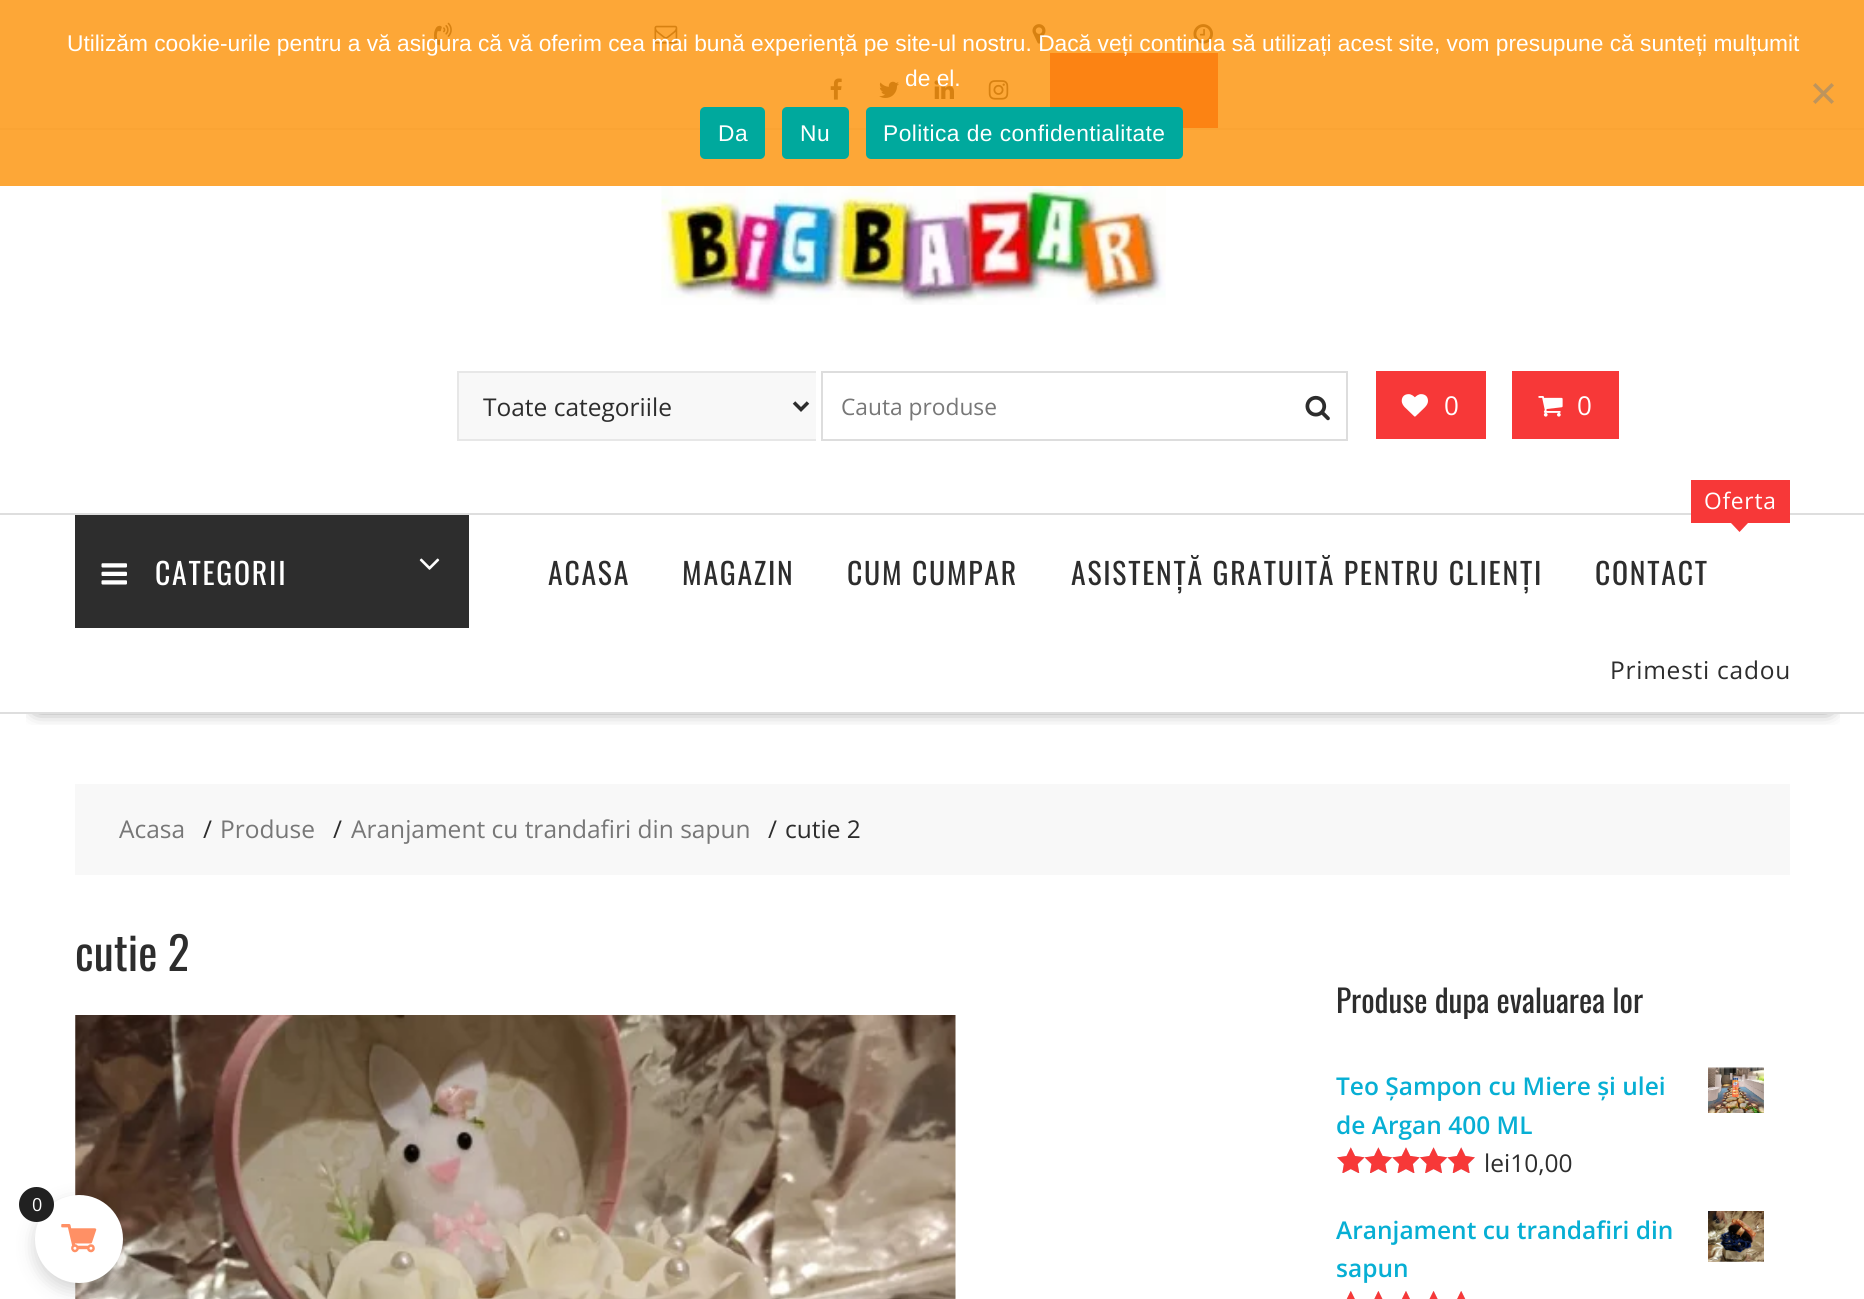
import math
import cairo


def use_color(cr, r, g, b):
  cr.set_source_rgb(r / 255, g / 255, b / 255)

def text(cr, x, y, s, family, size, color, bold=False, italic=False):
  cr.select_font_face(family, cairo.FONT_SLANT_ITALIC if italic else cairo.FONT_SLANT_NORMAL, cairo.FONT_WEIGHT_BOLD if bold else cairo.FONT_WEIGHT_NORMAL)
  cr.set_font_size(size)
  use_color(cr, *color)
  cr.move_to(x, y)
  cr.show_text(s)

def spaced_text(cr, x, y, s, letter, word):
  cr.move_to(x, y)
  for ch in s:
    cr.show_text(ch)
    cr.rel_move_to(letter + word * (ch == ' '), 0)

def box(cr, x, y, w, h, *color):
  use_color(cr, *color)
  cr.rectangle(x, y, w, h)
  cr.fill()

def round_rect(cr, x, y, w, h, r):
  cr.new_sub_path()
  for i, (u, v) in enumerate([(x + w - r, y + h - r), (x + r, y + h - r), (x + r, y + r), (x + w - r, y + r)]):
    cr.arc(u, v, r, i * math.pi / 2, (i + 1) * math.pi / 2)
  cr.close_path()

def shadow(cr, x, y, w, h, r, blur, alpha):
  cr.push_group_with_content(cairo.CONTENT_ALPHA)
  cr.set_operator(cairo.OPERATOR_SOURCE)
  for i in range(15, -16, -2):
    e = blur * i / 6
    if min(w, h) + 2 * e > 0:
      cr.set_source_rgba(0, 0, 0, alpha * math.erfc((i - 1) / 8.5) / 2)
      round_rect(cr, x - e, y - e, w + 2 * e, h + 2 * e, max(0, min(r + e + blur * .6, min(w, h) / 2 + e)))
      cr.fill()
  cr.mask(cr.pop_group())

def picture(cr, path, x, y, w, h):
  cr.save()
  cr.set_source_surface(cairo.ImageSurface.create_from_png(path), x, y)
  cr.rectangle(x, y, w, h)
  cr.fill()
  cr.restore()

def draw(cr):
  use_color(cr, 255, 255, 255)
  cr.paint()
  box(cr, 0, 128, 1864, 2, 238, 238, 238)
  picture(cr, "img_02.png", 434, 22, 18, 24)
  picture(cr, "img_03.png", 654, 25, 24, 19)
  picture(cr, "img_04.png", 1032, 24, 14, 20)
  picture(cr, "img_05.png", 1193, 24, 20, 20)
  picture(cr, "img_06.png", 830, 78, 12, 22)
  picture(cr, "img_07.png", 879, 81, 20, 17)
  picture(cr, "img_08.png", 934, 80, 20, 19)
  picture(cr, "img_09.png", 988, 80, 21, 20)
  box(cr, 1050, 53, 168, 75, 247, 56, 56)
  picture(cr, "img_10.png", 661, 185, 505, 120)
  cr.set_source_rgba(0.988, 0.58, 0.047, 0.82)
  cr.rectangle(0, 0, 1864, 186)
  cr.fill()
  use_color(cr, 190, 148, 92)
  cr.new_path()
  cr.move_to(1831.5, 83)
  cr.line_to(1834, 85.5)
  cr.line_to(1815.5, 104)
  cr.line_to(1813, 101.5)
  cr.close_path()
  cr.fill()
  cr.new_path()
  cr.move_to(1813, 85.5)
  cr.line_to(1815.5, 83)
  cr.line_to(1834, 101.5)
  cr.line_to(1831.5, 104)
  cr.close_path()
  cr.fill()
  use_color(cr, 0, 169, 157)
  round_rect(cr, 700, 107, 65, 52, 5)
  cr.fill()
  round_rect(cr, 782, 107, 67, 52, 5)
  cr.fill()
  round_rect(cr, 866, 107, 317, 52, 5)
  cr.fill()
  picture(cr, "img_16.png", 75, 1015, 881, 284)
  use_color(cr, 0, 0, 0)
  shadow(cr, 35, 1202, 88, 88, 44, 9, 0.17)
  use_color(cr, 255, 255, 255)
  cr.arc(79, 1239, 44, 0, 2 * math.pi)
  cr.fill()
  use_color(cr, 33, 33, 33)
  cr.arc(36.5, 1204.5, 17.5, 0, 2 * math.pi)
  cr.fill()
  picture(cr, "img_01.png", 61, 1224, 36, 29)
  box(cr, 459, 373, 357, 66, 248, 248, 248)
  box(cr, 457, 371, 359, 2, 231, 231, 231)
  box(cr, 457, 439, 359, 2, 231, 231, 231)
  box(cr, 457, 371, 2, 70, 231, 231, 231)
  cr.new_path()
  cr.move_to(794, 402.5)
  cr.line_to(801, 409.5)
  cr.line_to(808, 402.5)
  use_color(cr, 45, 45, 45)
  cr.set_line_width(3.5)
  cr.stroke()
  cr.rectangle(822, 372, 525, 68)
  use_color(cr, 221, 221, 221)
  cr.set_line_width(2)
  cr.stroke()
  picture(cr, "img_11.png", 1305, 395, 25, 26)
  box(cr, 1376, 371, 110, 68, 247, 56, 56)
  picture(cr, "img_12.png", 1401, 394, 27, 23)
  box(cr, 1512, 371, 107, 68, 247, 56, 56)
  picture(cr, "img_13.png", 1538, 396, 25, 21)
  cr.save()
  cr.rectangle(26, 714, 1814, 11)
  cr.clip()
  use_color(cr, 0, 0, 0)
  shadow(cr, 37, 579, 1792, 128, 0, 9.5, 0.75)
  cr.restore()
  box(cr, 0, 513, 1864, 2, 222, 222, 222)
  box(cr, 0, 712, 1864, 2, 222, 222, 222)
  box(cr, 75, 515, 394, 113, 45, 45, 45)
  picture(cr, "img_14.png", 101, 563, 26, 22)
  picture(cr, "img_15.png", 419, 558, 21, 12)
  box(cr, 1691, 480, 99, 43, 247, 56, 56)
  cr.new_path()
  cr.move_to(1731, 523)
  cr.line_to(1748, 523)
  cr.line_to(1739.5, 532)
  cr.close_path()
  cr.fill()
  box(cr, 75, 784, 1715, 91, 248, 248, 248)
  picture(cr, "img_17.png", 1708, 1067, 56, 46)
  picture(cr, "img_18.png", 1337, 1147, 138, 26)
  picture(cr, "img_19.png", 1337, 1147, 138, 26)
  picture(cr, "img_20.png", 1708, 1211, 56, 51)
  picture(cr, "img_22.png", 1347, 1291, 119, 8)
  picture(cr, "img_21.png", 1346, 1291, 120, 8)
  text(cr, 67, 51, "Utilizăm cookie-urile pentru a vă asigura că vă oferim cea mai bună experiență pe site-ul nostru. Dacă veți continua să utilizați acest site, vom presupune că sunteți mulțumit", "Liberation Sans", 22.75, (255, 255, 255))
  text(cr, 905, 86, "de el.", "Liberation Sans", 22.75, (255, 255, 255))
  spaced_text(cr, 718, 141, "Da", 0.45, 0)
  spaced_text(cr, 800, 141, "Nu", 0.45, 0)
  spaced_text(cr, 883, 141, "Politica de confidentialitate", 0.45, 0)
  text(cr, 32, 1211, "0", "Open Sans", 18, (255, 255, 255))
  cr.save()
  cr.rectangle(483, 389, 287, 36)
  cr.clip()
  text(cr, 483, 416, "Toate categoriile", "Open Sans", 24.5, (45, 45, 45))
  cr.restore()
  text(cr, 841, 415, "Cauta produse", "Open Sans", 22.75, (119, 119, 119))
  text(cr, 1444, 415, "0", "Open Sans", 26, (255, 255, 255))
  text(cr, 1577, 415, "0", "Open Sans", 26, (255, 255, 255))
  cr.select_font_face("Oswald")
  cr.set_font_size(29.75)
  spaced_text(cr, 155, 585, "CATEGORII", 1.75, 0)
  cr.select_font_face("Open Sans")
  cr.set_font_size(22.75)
  spaced_text(cr, 1704, 509, "Oferta", 0.75, 0)
  cr.set_font_size(24.5)
  use_color(cr, 45, 45, 45)
  spaced_text(cr, 1610, 679, "Primesti cadou", 0.75, 0)
  cr.select_font_face("Oswald")
  cr.set_font_size(29.75)
  spaced_text(cr, 548, 585, "ACASA", 1.75, 0)
  spaced_text(cr, 682, 585, "MAGAZIN", 1.75, 0)
  spaced_text(cr, 847, 585, "CUM CUMPAR", 1.75, 0)
  spaced_text(cr, 1071, 585, "ASISTENȚĂ GRATUITĂ PENTRU CLIENȚI", 1.75, 0)
  spaced_text(cr, 1595, 585, "CONTACT", 1.75, 0)
  text(cr, 119, 838, "Acasa", "Open Sans", 24.5, (119, 119, 119))
  text(cr, 203, 838, "/", "Open Sans", 24.5, (45, 45, 45))
  text(cr, 220, 838, "Produse", "Open Sans", 24.5, (119, 119, 119))
  text(cr, 333, 838, "/", "Open Sans", 24.5, (45, 45, 45))
  text(cr, 351, 838, "Aranjament cu trandafiri din sapun", "Open Sans", 24.5, (119, 119, 119))
  text(cr, 768, 838, "/", "Open Sans", 24.5, (45, 45, 45))
  text(cr, 785, 838, "cutie 2", "Open Sans", 24.5, (45, 45, 45))
  text(cr, 75, 971, "cutie 2", "Oswald", 45.5, (45, 45, 45))
  text(cr, 1336, 1013, "Produse dupa evaluarea lor", "Oswald", 31.5, (45, 45, 45))
  text(cr, 1336, 1095, "Teo Șampon cu Miere și ulei", "Open Sans SemiBold", 24.5, (7, 175, 212))
  text(cr, 1336, 1134, "de Argan 400 ML", "Open Sans SemiBold", 24.5, (7, 175, 212))
  text(cr, 1484, 1172, "lei10,00", "Open Sans", 24.5, (45, 45, 45))
  text(cr, 1336, 1239, "Aranjament cu trandafiri din", "Open Sans SemiBold", 24.5, (7, 175, 212))
  text(cr, 1336, 1277, "sapun", "Open Sans SemiBold", 24.5, (7, 175, 212))


surface = cairo.ImageSurface(cairo.FORMAT_RGB24, 1864, 1299)
cr = cairo.Context(surface)
options = cairo.FontOptions()
options.set_hint_metrics(cairo.HINT_METRICS_OFF)
options.set_hint_style(cairo.HINT_STYLE_NONE)
cr.set_font_options(options)
cr.set_miter_limit(4)
draw(cr)
surface.write_to_png("out.png")
